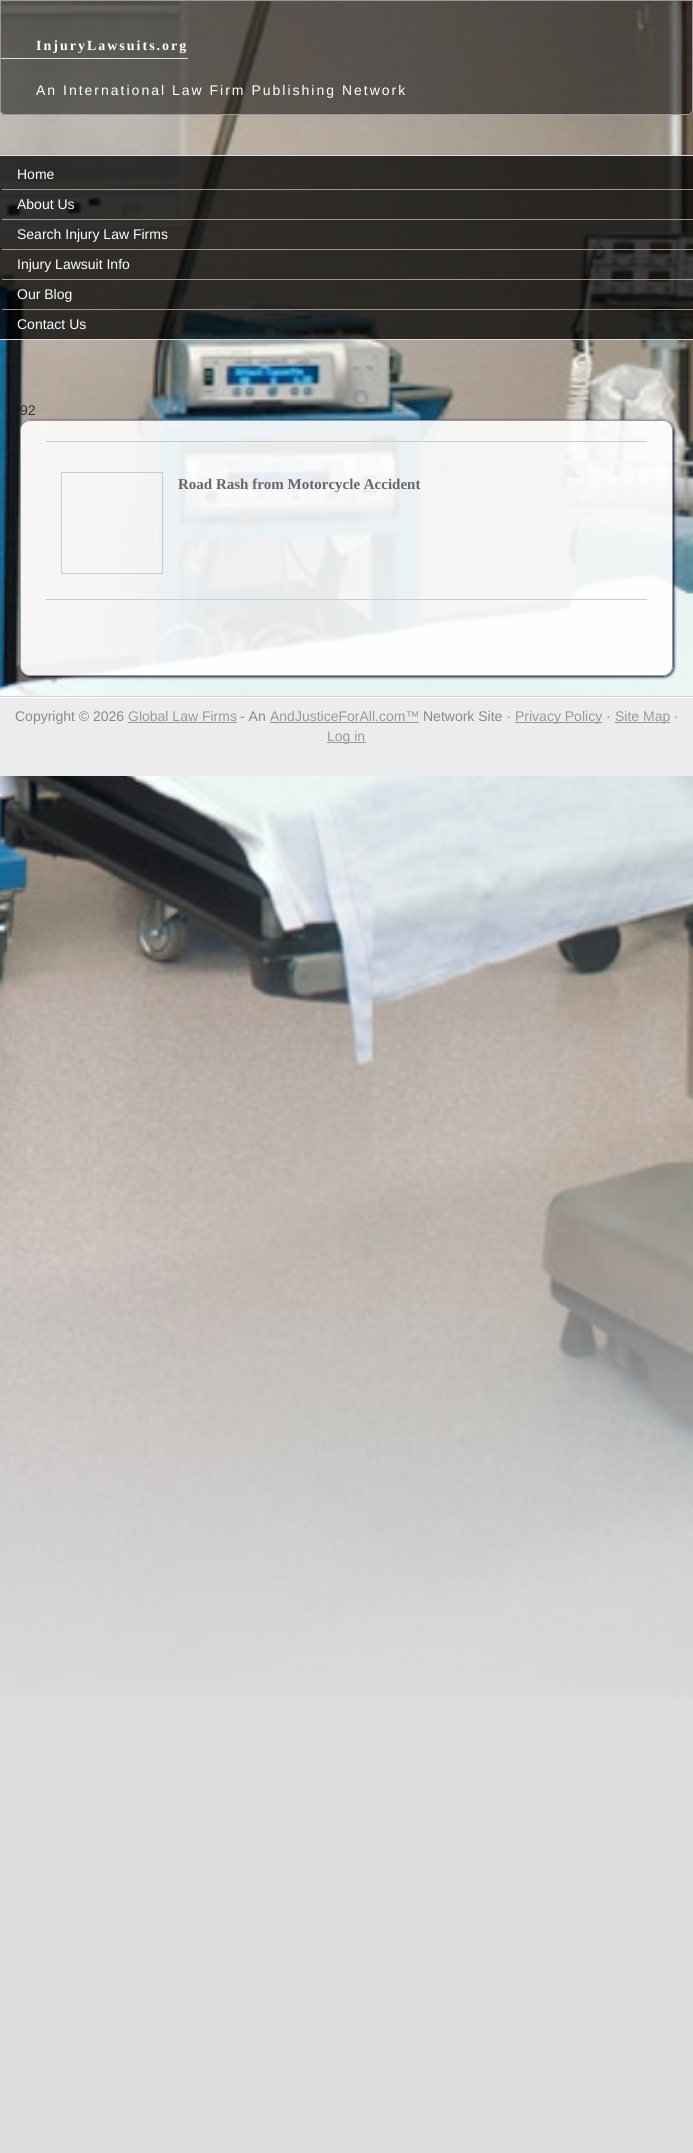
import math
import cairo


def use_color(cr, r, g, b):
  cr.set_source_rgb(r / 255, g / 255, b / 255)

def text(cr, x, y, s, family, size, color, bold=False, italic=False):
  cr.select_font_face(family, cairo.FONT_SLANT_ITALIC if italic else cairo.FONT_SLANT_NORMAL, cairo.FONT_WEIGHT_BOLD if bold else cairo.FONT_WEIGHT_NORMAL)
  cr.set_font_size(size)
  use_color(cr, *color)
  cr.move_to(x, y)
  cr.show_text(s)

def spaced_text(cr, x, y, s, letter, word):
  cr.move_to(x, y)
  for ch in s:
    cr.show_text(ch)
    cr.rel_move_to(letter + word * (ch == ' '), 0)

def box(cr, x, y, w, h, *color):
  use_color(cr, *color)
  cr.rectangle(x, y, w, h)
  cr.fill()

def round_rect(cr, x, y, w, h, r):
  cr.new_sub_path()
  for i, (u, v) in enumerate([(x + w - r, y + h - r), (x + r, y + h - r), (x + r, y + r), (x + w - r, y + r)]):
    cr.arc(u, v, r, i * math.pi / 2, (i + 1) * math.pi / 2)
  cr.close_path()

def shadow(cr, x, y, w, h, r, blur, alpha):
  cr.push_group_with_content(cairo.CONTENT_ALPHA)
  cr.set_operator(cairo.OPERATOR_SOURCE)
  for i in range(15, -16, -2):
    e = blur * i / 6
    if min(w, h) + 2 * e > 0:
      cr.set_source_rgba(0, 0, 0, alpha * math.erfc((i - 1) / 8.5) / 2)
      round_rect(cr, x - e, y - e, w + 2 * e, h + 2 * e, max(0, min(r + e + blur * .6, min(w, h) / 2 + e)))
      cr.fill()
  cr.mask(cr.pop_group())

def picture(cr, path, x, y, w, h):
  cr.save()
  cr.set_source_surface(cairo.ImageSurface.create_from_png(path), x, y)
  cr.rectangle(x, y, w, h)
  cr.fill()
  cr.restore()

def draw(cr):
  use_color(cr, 221, 221, 221)
  cr.paint()
  picture(cr, "img_01.png", 0, 1, 693, 1696)
  cr.set_source_rgba(0, 0, 0, 0.5)
  cr.new_path()
  cr.move_to(0.5, 0.5)
  cr.line_to(692.5, 0.5)
  cr.line_to(692.5, 110)
  cr.curve_to(692.5, 112.5, 690.5, 114.5, 688, 114.5)
  cr.line_to(5, 114.5)
  cr.curve_to(2.5, 114.5, 0.5, 112.5, 0.5, 110)
  cr.close_path()
  cr.fill_preserve()
  use_color(cr, 153, 153, 153)
  cr.set_line_width(1)
  cr.stroke()
  box(cr, 1, 58, 187, 1, 221, 221, 221)
  cr.set_source_rgba(0, 0, 0, 0.5)
  cr.rectangle(0, 156, 693, 183)
  cr.fill()
  box(cr, 0, 155, 693, 1, 221, 221, 221)
  box(cr, 0, 339, 693, 1, 221, 221, 221)
  cr.set_source_rgba(0, 0, 0, 0.5)
  cr.rectangle(0, 156, 693, 183)
  cr.fill()
  box(cr, 2, 189, 691, 1, 165, 151, 138)
  box(cr, 2, 219, 691, 1, 165, 151, 138)
  box(cr, 2, 249, 691, 1, 165, 151, 138)
  box(cr, 2, 279, 691, 1, 165, 151, 138)
  box(cr, 2, 309, 691, 1, 165, 151, 138)
  cr.save()
  cr.set_fill_rule(cairo.FILL_RULE_EVEN_ODD)
  cr.new_path()
  cr.move_to(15, 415)
  cr.line_to(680, 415)
  cr.line_to(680, 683)
  cr.line_to(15, 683)
  cr.close_path()
  cr.move_to(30, 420)
  cr.line_to(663, 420)
  cr.curve_to(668.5, 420, 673, 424.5, 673, 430)
  cr.line_to(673, 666)
  cr.curve_to(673, 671.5, 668.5, 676, 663, 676)
  cr.line_to(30, 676)
  cr.curve_to(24.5, 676, 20, 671.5, 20, 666)
  cr.line_to(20, 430)
  cr.curve_to(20, 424.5, 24.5, 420, 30, 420)
  cr.close_path()
  cr.clip()
  use_color(cr, 0, 0, 51)
  shadow(cr, 21, 421, 653, 256, 10, 1.5, 1)
  cr.restore()
  cr.set_source_rgba(1, 1, 1, 0.9)
  round_rect(cr, 20.5, 420.5, 652, 255, 9.5)
  cr.fill_preserve()
  use_color(cr, 153, 153, 153)
  cr.stroke()
  box(cr, 46, 441, 601, 1, 204, 204, 204)
  box(cr, 46, 599, 601, 1, 204, 204, 204)
  cr.rectangle(61.5, 472.5, 101, 101)
  cr.stroke()
  box(cr, 0, 698, 693, 78, 236, 236, 236)
  picture(cr, "img_02.png", 0, 696, 693, 2)
  box(cr, 128, 722, 109, 1, 153, 153, 153)
  box(cr, 270, 722, 149, 1, 153, 153, 153)
  box(cr, 515, 722, 87, 1, 153, 153, 153)
  box(cr, 615, 722, 55, 1, 153, 153, 153)
  box(cr, 327, 742, 39, 1, 153, 153, 153)
  cr.select_font_face("Liberation Serif", cairo.FONT_SLANT_NORMAL, cairo.FONT_WEIGHT_BOLD)
  cr.set_font_size(14)
  use_color(cr, 255, 255, 255)
  spaced_text(cr, 36, 50, "InjuryLawsuits.org", 2, 0)
  cr.select_font_face("Liberation Sans")
  spaced_text(cr, 36, 95, "An International Law Firm Publishing Network", 2, 0)
  text(cr, 17, 179, "Home", "Liberation Sans", 14, (255, 255, 255))
  text(cr, 17, 209, "About Us", "Liberation Sans", 14, (255, 255, 255))
  text(cr, 17, 239, "Search Injury Law Firms", "Liberation Sans", 14, (255, 255, 255))
  text(cr, 17, 269, "Injury Lawsuit Info", "Liberation Sans", 14, (255, 255, 255))
  text(cr, 17, 299, "Our Blog", "Liberation Sans", 14, (255, 255, 255))
  text(cr, 17, 329, "Contact Us", "Liberation Sans", 14, (255, 255, 255))
  text(cr, 20, 415, "92", "Liberation Sans", 14, (51, 51, 51))
  text(cr, 178, 489, "Road Rash from Motorcycle Accident", "Liberation Serif", 15, (102, 102, 102), bold=True)
  text(cr, 15, 721, "Copyright © 2026", "Liberation Sans", 14, (136, 136, 136))
  text(cr, 128, 721, "Global Law Firms", "Liberation Sans", 14, (153, 153, 153))
  text(cr, 240, 721, "- An", "Liberation Sans", 14, (136, 136, 136))
  text(cr, 270, 721, "AndJusticeForAll.com™", "Liberation Sans", 14, (153, 153, 153))
  text(cr, 423, 721, "Network Site ·", "Liberation Sans", 14, (136, 136, 136))
  text(cr, 515, 721, "Privacy Policy", "Liberation Sans", 14, (153, 153, 153))
  text(cr, 606, 721, "·", "Liberation Sans", 14, (136, 136, 136))
  text(cr, 615, 721, "Site Map", "Liberation Sans", 14, (153, 153, 153))
  text(cr, 674, 721, "·", "Liberation Sans", 14, (136, 136, 136))
  text(cr, 327, 741, "Log in", "Liberation Sans", 14, (153, 153, 153))


surface = cairo.ImageSurface(cairo.FORMAT_RGB24, 693, 2153)
cr = cairo.Context(surface)
options = cairo.FontOptions()
options.set_hint_metrics(cairo.HINT_METRICS_OFF)
options.set_hint_style(cairo.HINT_STYLE_NONE)
cr.set_font_options(options)
cr.set_miter_limit(4)
draw(cr)
surface.write_to_png("out.png")
